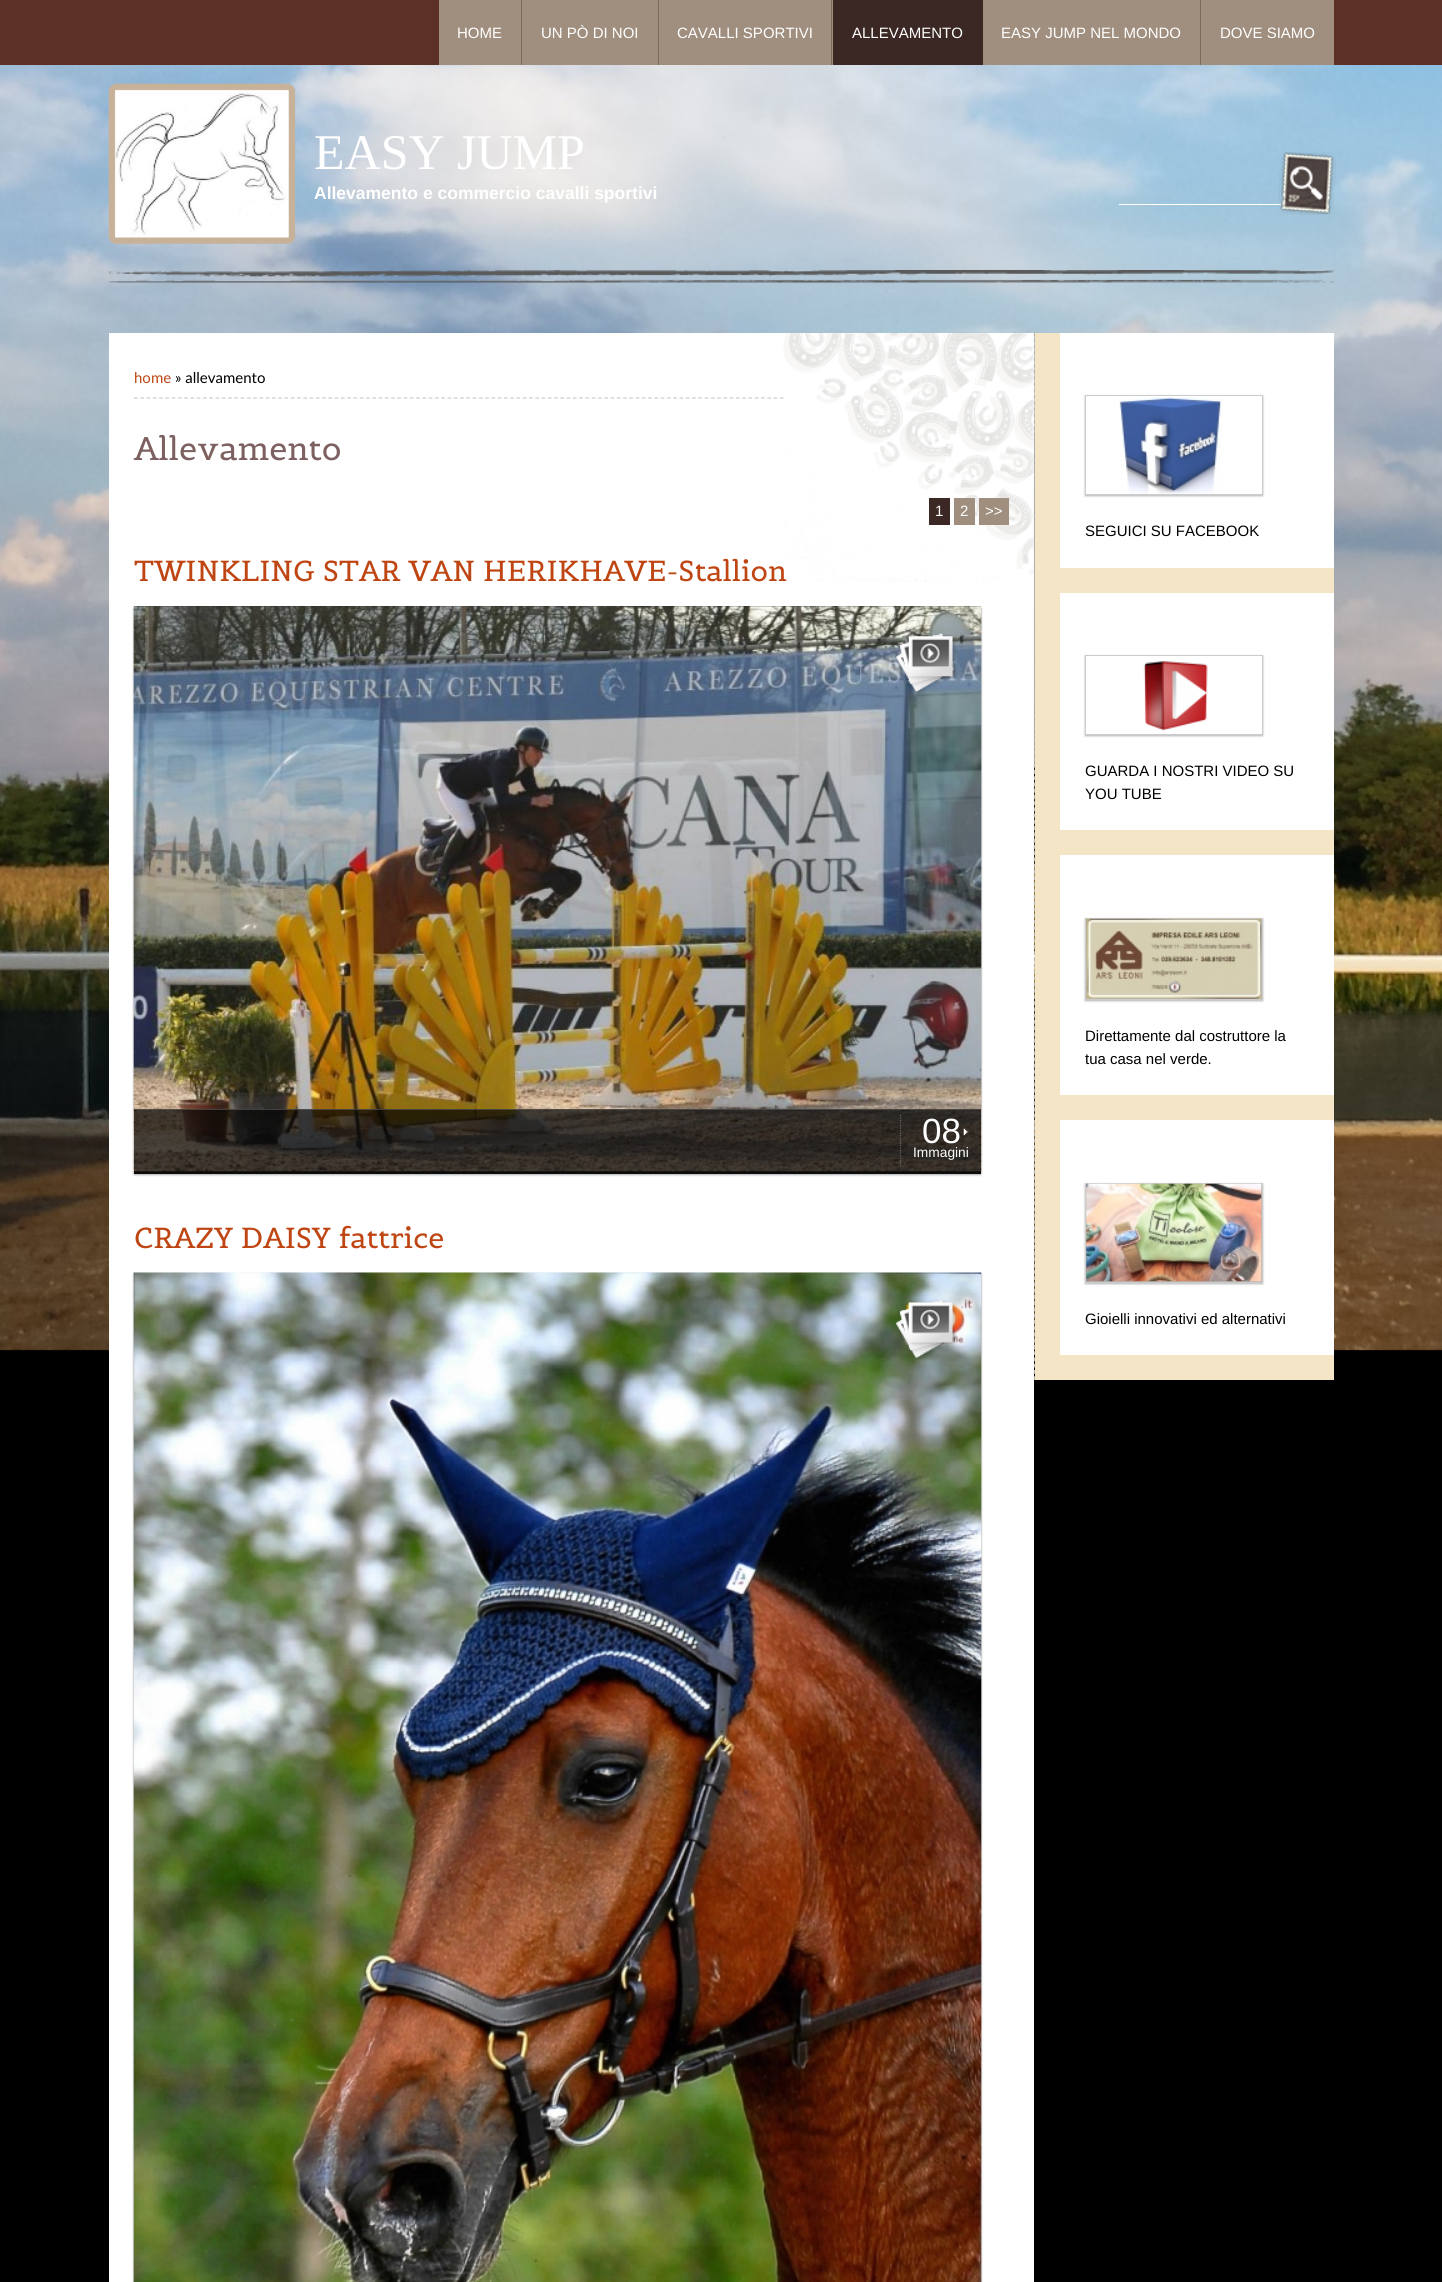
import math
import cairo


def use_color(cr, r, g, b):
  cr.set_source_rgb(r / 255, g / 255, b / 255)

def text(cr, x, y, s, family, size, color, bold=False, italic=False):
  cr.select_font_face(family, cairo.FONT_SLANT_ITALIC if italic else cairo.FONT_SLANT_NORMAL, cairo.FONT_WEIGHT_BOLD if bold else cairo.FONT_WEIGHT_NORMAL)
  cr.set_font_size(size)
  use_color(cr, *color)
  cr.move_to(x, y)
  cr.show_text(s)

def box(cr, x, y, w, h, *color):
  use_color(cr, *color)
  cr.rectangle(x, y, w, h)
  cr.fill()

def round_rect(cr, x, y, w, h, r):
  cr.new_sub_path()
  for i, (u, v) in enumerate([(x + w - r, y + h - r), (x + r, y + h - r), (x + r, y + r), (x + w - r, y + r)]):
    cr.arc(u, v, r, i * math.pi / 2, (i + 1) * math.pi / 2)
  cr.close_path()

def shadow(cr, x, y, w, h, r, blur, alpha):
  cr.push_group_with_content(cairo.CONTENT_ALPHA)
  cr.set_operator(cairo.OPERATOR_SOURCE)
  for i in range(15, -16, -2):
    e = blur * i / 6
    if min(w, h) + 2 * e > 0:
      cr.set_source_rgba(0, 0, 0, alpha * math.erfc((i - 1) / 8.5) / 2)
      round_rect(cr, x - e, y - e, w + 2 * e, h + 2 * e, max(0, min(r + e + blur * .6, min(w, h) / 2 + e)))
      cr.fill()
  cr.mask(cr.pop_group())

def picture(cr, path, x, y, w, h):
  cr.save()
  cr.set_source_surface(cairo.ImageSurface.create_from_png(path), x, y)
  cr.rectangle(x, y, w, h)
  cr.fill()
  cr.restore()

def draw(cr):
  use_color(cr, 0, 0, 0)
  cr.paint()
  picture(cr, "img_01.png", 0, 65, 1442, 1286)
  box(cr, 0, 0, 1442, 65, 92, 48, 37)
  box(cr, 439, 0, 219, 65, 160, 143, 127)
  box(cr, 521, 0, 1, 65, 122, 109, 96)
  box(cr, 658, 0, 1, 65, 122, 109, 96)
  box(cr, 659, 0, 174, 65, 160, 143, 127)
  box(cr, 831, 0, 1, 65, 122, 109, 96)
  box(cr, 833, 0, 150, 65, 59, 39, 35)
  box(cr, 983, 0, 217, 65, 160, 143, 127)
  box(cr, 1200, 0, 1, 65, 122, 109, 96)
  box(cr, 1201, 0, 133, 65, 160, 143, 127)
  picture(cr, "img_02.png", 108, 270, 1226, 13)
  picture(cr, "img_03.png", 108, 83, 188, 161)
  box(cr, 1119, 204, 162, 1, 255, 255, 255)
  picture(cr, "img_04.png", 1278, 152, 58, 63)
  box(cr, 109, 333, 925, 1949, 255, 255, 255)
  picture(cr, "img_05.png", 783, 332, 251, 251)
  cr.new_path()
  cr.move_to(134, 398)
  cr.line_to(784, 398)
  use_color(cr, 204, 204, 204)
  cr.set_line_width(1.2)
  cr.set_dash([3.75, 2.52])
  cr.stroke()
  box(cr, 929, 498, 21, 27, 59, 39, 35)
  box(cr, 954, 498, 21, 27, 160, 143, 127)
  box(cr, 979, 498, 30, 27, 160, 143, 127)
  use_color(cr, 0, 0, 0)
  shadow(cr, 134, 608, 847, 567, 0, 1, 0.3)
  box(cr, 134, 606, 847, 568, 51, 51, 51)
  use_color(cr, 0, 0, 0)
  shadow(cr, 134, 608, 847, 565, 0, 1, 0.3)
  picture(cr, "img_07.png", 133, 606, 849, 566)
  picture(cr, "img_06.png", 896, 633, 61, 61)
  cr.set_source_rgba(0, 0, 0, 0.7)
  cr.rectangle(134, 1109, 847, 65)
  cr.fill()
  cr.set_source_rgba(0.333, 0.333, 0.333, 0.7)
  cr.rectangle(134, 1109, 847, 1)
  cr.fill()
  cr.new_path()
  cr.move_to(900.5, 1115)
  cr.line_to(900.5, 1167.5)
  use_color(cr, 102, 102, 102)
  cr.set_dash([1.25, 1.25])
  cr.stroke()
  picture(cr, "img_08.png", 963, 1128, 5, 7)
  use_color(cr, 0, 0, 0)
  shadow(cr, 134, 1274, 847, 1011, 0, 1, 0.3)
  shadow(cr, 134, 1274, 847, 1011, 0, 1, 0.3)
  picture(cr, "img_09.png", 133, 1272, 849, 1010)
  picture(cr, "img_10.png", 896, 1299, 61, 61)
  cr.new_path()
  cr.move_to(1034.5, 332.5)
  cr.line_to(1034.5, 1380)
  use_color(cr, 180, 178, 175)
  cr.set_dash([3.75, 2.5])
  cr.stroke()
  box(cr, 1035, 333, 299, 1047, 243, 229, 197)
  box(cr, 1060, 333, 274, 235, 255, 255, 255)
  cr.save()
  cr.set_fill_rule(cairo.FILL_RULE_EVEN_ODD)
  cr.new_path()
  cr.move_to(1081, 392)
  cr.line_to(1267, 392)
  cr.line_to(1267, 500)
  cr.line_to(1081, 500)
  cr.close_path()
  cr.move_to(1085, 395)
  cr.line_to(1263, 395)
  cr.line_to(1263, 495)
  cr.line_to(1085, 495)
  cr.close_path()
  cr.clip()
  use_color(cr, 0, 0, 0)
  shadow(cr, 1085, 396, 178, 100, 0, 1, 0.3)
  cr.restore()
  cr.rectangle(1085.5, 395.5, 177, 99)
  use_color(cr, 204, 204, 204)
  cr.set_line_width(1)
  cr.set_dash([])
  cr.stroke()
  picture(cr, "img_11.png", 1119, 397, 103, 97)
  box(cr, 1060, 593, 274, 237, 255, 255, 255)
  cr.save()
  cr.set_fill_rule(cairo.FILL_RULE_EVEN_ODD)
  cr.new_path()
  cr.move_to(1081, 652)
  cr.line_to(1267, 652)
  cr.line_to(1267, 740)
  cr.line_to(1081, 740)
  cr.close_path()
  cr.move_to(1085, 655)
  cr.line_to(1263, 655)
  cr.line_to(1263, 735)
  cr.line_to(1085, 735)
  cr.close_path()
  cr.clip()
  use_color(cr, 0, 0, 0)
  shadow(cr, 1085, 656, 178, 80, 0, 1, 0.3)
  cr.restore()
  cr.rectangle(1085.5, 655.5, 177, 79)
  use_color(cr, 204, 204, 204)
  cr.stroke()
  picture(cr, "img_12.png", 1143, 661, 65, 70)
  box(cr, 1060, 855, 274, 240, 255, 255, 255)
  use_color(cr, 0, 0, 0)
  shadow(cr, 1085, 919, 178, 82, 0, 1, 0.3)
  cr.rectangle(1085.5, 918.5, 177, 81)
  use_color(cr, 204, 204, 204)
  cr.stroke()
  picture(cr, "img_13.png", 1086, 918, 176, 81)
  box(cr, 1060, 1120, 274, 235, 255, 255, 255)
  use_color(cr, 0, 0, 0)
  shadow(cr, 1085, 1184, 178, 100, 0, 1, 0.3)
  cr.rectangle(1085.5, 1183.5, 177, 99)
  use_color(cr, 204, 204, 204)
  cr.stroke()
  picture(cr, "img_14.png", 1086, 1183, 176, 99)
  text(cr, 457, 38, "HOME", "Liberation Sans", 15, (255, 255, 255))
  text(cr, 541, 38, "UN PÒ DI NOI", "Liberation Sans", 15, (255, 255, 255))
  text(cr, 677, 38, "CAVALLI SPORTIVI", "Liberation Sans", 15, (255, 255, 255))
  text(cr, 852, 38, "ALLEVAMENTO", "Liberation Sans", 15, (255, 255, 255))
  text(cr, 1001, 38, "EASY JUMP NEL MONDO", "Liberation Sans", 15, (255, 255, 255))
  text(cr, 1220, 38, "DOVE SIAMO", "Liberation Sans", 15, (255, 255, 255))
  text(cr, 314, 169, "EASY JUMP", "Liberation Serif", 50, (255, 255, 255))
  text(cr, 314, 199, "Allevamento e commercio cavalli sportivi", "Liberation Sans", 17.5, (255, 255, 255), bold=True)
  text(cr, 134, 383, "home", "Lato", 15, (191, 70, 19))
  text(cr, 175, 383, "» allevamento", "Lato", 15, (0, 0, 0))
  text(cr, 134, 460, "Allevamento", "Belgrano", 32.5, (125, 96, 96))
  text(cr, 935, 516, "1", "Liberation Sans", 15, (255, 255, 255))
  text(cr, 960, 516, "2", "Liberation Sans", 15, (255, 255, 255))
  text(cr, 985, 516, ">>", "Liberation Sans", 15, (255, 255, 255))
  text(cr, 134, 581, "TWINKLING STAR VAN HERIKHAVE-Stallion", "Belgrano", 28.75, (191, 70, 19))
  text(cr, 922, 1143, "08", "Liberation Sans", 35, (255, 255, 255))
  text(cr, 913, 1157, "Immagini", "Liberation Sans", 13.75, (255, 255, 255))
  text(cr, 134, 1248, "CRAZY DAISY fattrice", "Belgrano", 28.75, (191, 70, 19))
  text(cr, 1085, 536, "SEGUICI SU FACEBOOK", "Liberation Sans", 15, (0, 0, 0))
  text(cr, 1085, 776, "GUARDA I NOSTRI VIDEO SU", "Liberation Sans", 15, (0, 0, 0))
  text(cr, 1085, 799, "YOU TUBE", "Liberation Sans", 15, (0, 0, 0))
  text(cr, 1085, 1041, "Direttamente dal costruttore la", "Liberation Sans", 15, (0, 0, 0))
  text(cr, 1085, 1064, "tua casa nel verde.", "Liberation Sans", 15, (0, 0, 0))
  text(cr, 1085, 1324, "Gioielli innovativi ed alternativi", "Liberation Sans", 15, (0, 0, 0))


surface = cairo.ImageSurface(cairo.FORMAT_RGB24, 1442, 2282)
cr = cairo.Context(surface)
options = cairo.FontOptions()
options.set_hint_metrics(cairo.HINT_METRICS_OFF)
options.set_hint_style(cairo.HINT_STYLE_NONE)
cr.set_font_options(options)
cr.set_miter_limit(4)
draw(cr)
surface.write_to_png("out.png")
